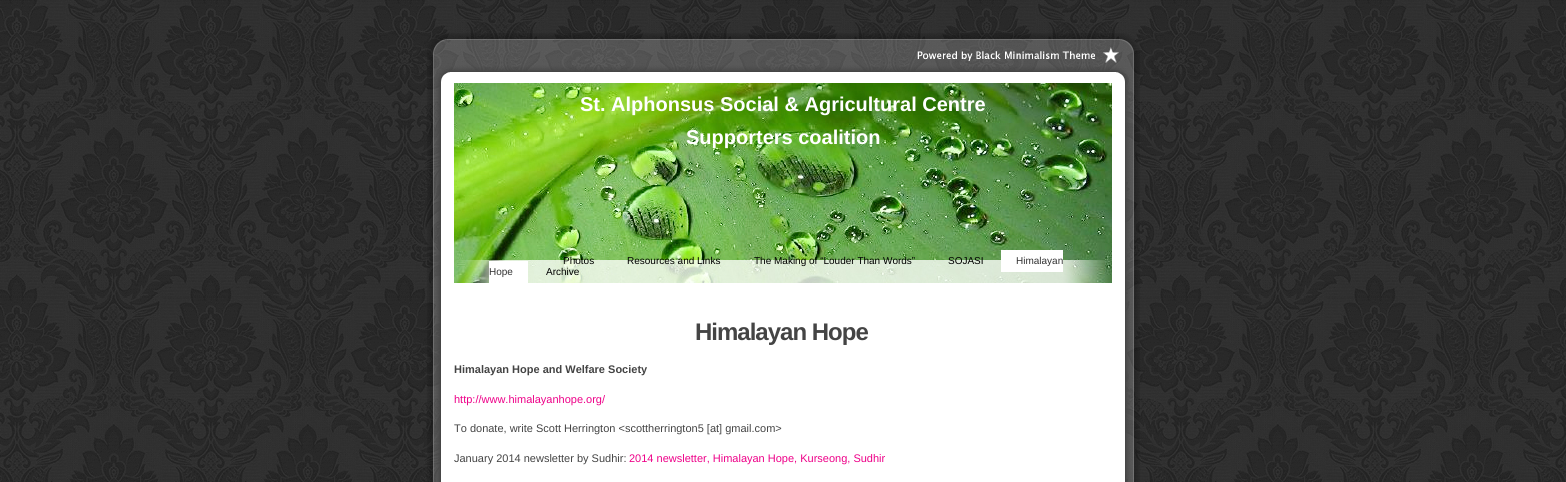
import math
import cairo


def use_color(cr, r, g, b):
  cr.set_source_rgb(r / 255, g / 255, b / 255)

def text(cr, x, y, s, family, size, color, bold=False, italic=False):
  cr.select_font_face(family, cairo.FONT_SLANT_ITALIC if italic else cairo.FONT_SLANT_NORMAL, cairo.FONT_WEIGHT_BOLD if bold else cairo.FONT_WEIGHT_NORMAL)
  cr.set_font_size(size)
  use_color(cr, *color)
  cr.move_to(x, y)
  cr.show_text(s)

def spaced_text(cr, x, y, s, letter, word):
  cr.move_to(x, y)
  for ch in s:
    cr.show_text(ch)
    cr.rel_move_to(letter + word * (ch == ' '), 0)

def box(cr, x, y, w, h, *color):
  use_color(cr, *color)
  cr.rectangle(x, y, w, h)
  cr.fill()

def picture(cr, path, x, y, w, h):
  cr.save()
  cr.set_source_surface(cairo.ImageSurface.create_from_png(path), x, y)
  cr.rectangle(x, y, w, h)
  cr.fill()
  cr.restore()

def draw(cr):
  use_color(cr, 255, 255, 255)
  cr.paint()
  picture(cr, "img_01.png", 0, 0, 1566, 482)
  picture(cr, "img_02.png", 427, 33, 713, 50)
  picture(cr, "img_03.png", 427, 83, 713, 399)
  picture(cr, "img_04.png", 454, 83, 658, 200)
  box(cr, 1001, 250, 62, 22, 255, 255, 255)
  box(cr, 489, 261, 39, 22, 255, 255, 255)
  text(cr, 580, 111, "St. Alphonsus Social & Agricultural Centre", "Liberation Sans", 20, (255, 255, 255), bold=True)
  text(cr, 686, 144, "Supporters coalition", "Liberation Sans", 20, (255, 255, 255), bold=True)
  text(cr, 563, 264, "Photos", "Liberation Sans", 10, (0, 0, 0))
  text(cr, 627, 264, "Resources and Links", "Liberation Sans", 10, (0, 0, 0))
  text(cr, 754, 264, "The Making of “Louder Than Words”", "Liberation Sans", 10, (0, 0, 0))
  text(cr, 948, 264, "SOJASI", "Liberation Sans", 10, (0, 0, 0))
  text(cr, 1016, 264, "Himalayan", "Liberation Sans", 10, (51, 51, 51))
  text(cr, 489, 275, "Hope", "Liberation Sans", 10, (51, 51, 51))
  text(cr, 546, 275, "Archive", "Liberation Sans", 10, (0, 0, 0))
  cr.select_font_face("Liberation Sans", cairo.FONT_SLANT_NORMAL, cairo.FONT_WEIGHT_BOLD)
  cr.set_font_size(24)
  use_color(cr, 68, 68, 68)
  spaced_text(cr, 695, 340, "Himalayan Hope", -1, 0)
  text(cr, 454, 373, "Himalayan Hope and Welfare Society", "Liberation Sans", 11, (68, 68, 68), bold=True)
  text(cr, 454, 403, "http://www.himalayanhope.org/", "Liberation Sans", 11, (238, 0, 136))
  text(cr, 454, 432, "To donate, write Scott Herrington <scottherrington5 [at] gmail.com>", "Liberation Sans", 11, (68, 68, 68))
  text(cr, 454, 462, "January 2014 newsletter by Sudhir:", "Liberation Sans", 11, (68, 68, 68))
  text(cr, 629, 462, "2014 newsletter, Himalayan Hope, Kurseong, Sudhir", "Liberation Sans", 11, (238, 0, 136))


surface = cairo.ImageSurface(cairo.FORMAT_RGB24, 1566, 482)
cr = cairo.Context(surface)
options = cairo.FontOptions()
options.set_hint_metrics(cairo.HINT_METRICS_OFF)
options.set_hint_style(cairo.HINT_STYLE_NONE)
cr.set_font_options(options)
cr.set_miter_limit(4)
draw(cr)
surface.write_to_png("out.png")
